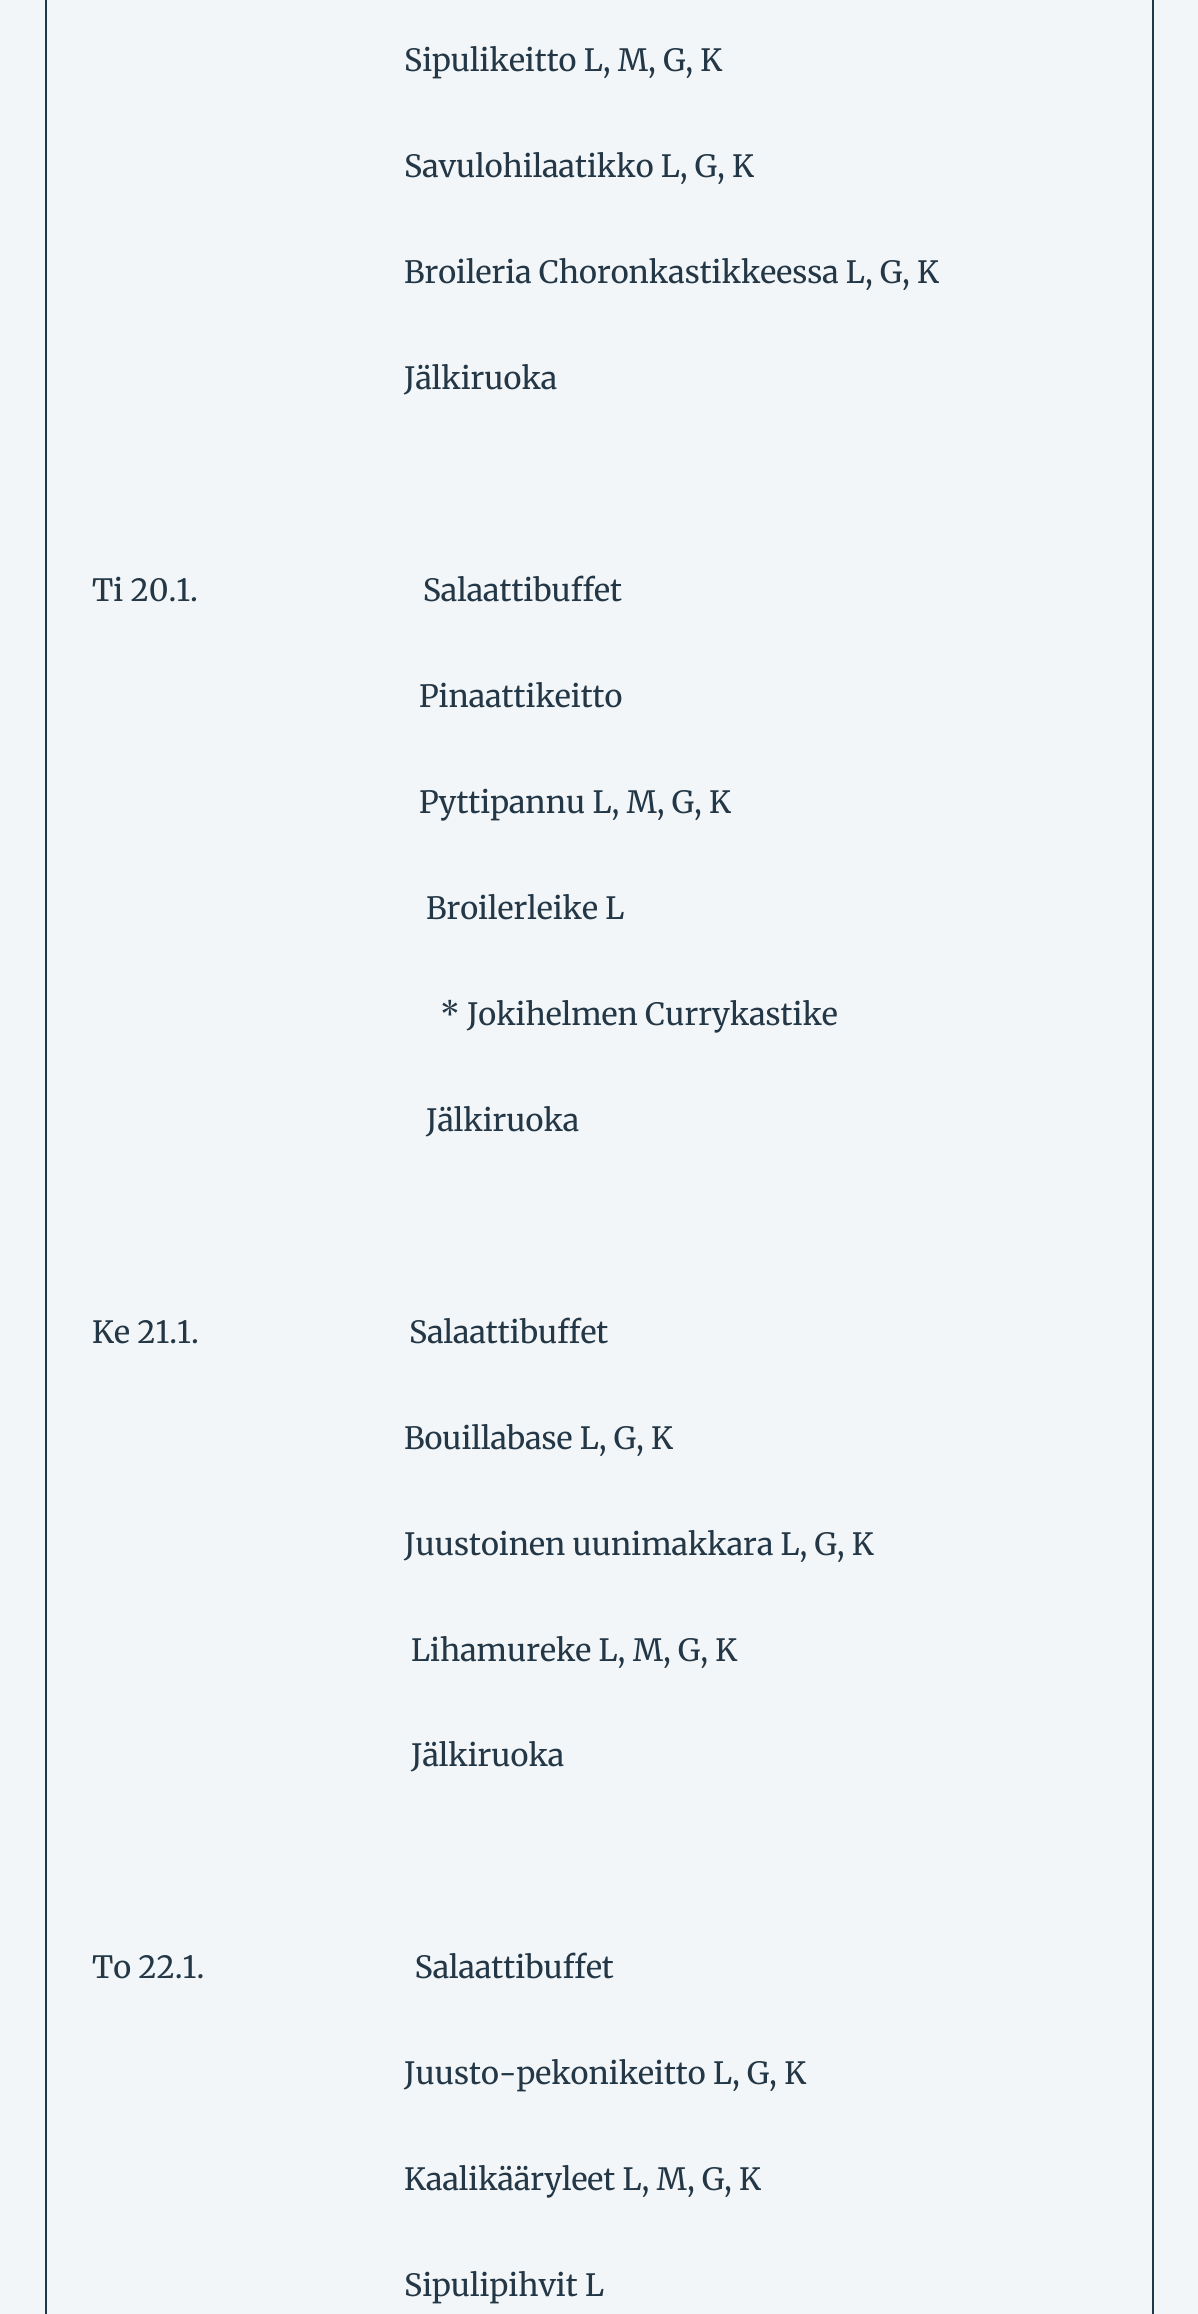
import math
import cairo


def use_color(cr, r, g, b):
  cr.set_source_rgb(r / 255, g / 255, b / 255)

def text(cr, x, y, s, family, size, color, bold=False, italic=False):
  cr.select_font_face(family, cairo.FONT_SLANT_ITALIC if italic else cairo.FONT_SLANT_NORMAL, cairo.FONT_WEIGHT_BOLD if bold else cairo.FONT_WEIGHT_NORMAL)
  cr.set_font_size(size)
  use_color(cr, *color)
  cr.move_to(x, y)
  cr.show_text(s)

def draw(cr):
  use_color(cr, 243, 246, 248)
  cr.paint()
  cr.rectangle(46, -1, 1107, 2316)
  use_color(cr, 35, 55, 70)
  cr.stroke()
  text(cr, 404, 71, "Sipulikeitto L, M, G, K", "Merriweather", 30.6, (35, 55, 70))
  text(cr, 404, 177, "Savulohilaatikko L, G, K", "Merriweather", 30.6, (35, 55, 70))
  text(cr, 404, 283, "Broileria Choronkastikkeessa L, G, K", "Merriweather", 30.6, (35, 55, 70))
  text(cr, 404, 389, "Jälkiruoka", "Merriweather", 30.6, (35, 55, 70))
  text(cr, 92, 601, "Ti 20.1.                               Salaattibuffet", "Merriweather", 30.6, (35, 55, 70))
  text(cr, 419, 707, "Pinaattikeitto", "Merriweather", 30.6, (35, 55, 70))
  text(cr, 419, 813, "Pyttipannu L, M, G, K", "Merriweather", 30.6, (35, 55, 70))
  text(cr, 426, 919, "Broilerleike L", "Merriweather", 30.6, (35, 55, 70))
  text(cr, 440, 1025, "* Jokihelmen Currykastike", "Merriweather", 30.6, (35, 55, 70))
  text(cr, 426, 1131, "Jälkiruoka", "Merriweather", 30.6, (35, 55, 70))
  text(cr, 92, 1343, "Ke 21.1.                             Salaattibuffet", "Merriweather", 30.6, (35, 55, 70))
  text(cr, 404, 1449, "Bouillabase L, G, K", "Merriweather", 30.6, (35, 55, 70))
  text(cr, 404, 1555, "Juustoinen uunimakkara L, G, K", "Merriweather", 30.6, (35, 55, 70))
  text(cr, 411, 1661, "Lihamureke L, M, G, K", "Merriweather", 30.6, (35, 55, 70))
  text(cr, 411, 1766, "Jälkiruoka", "Merriweather", 30.6, (35, 55, 70))
  text(cr, 92, 1978, "To 22.1.                             Salaattibuffet", "Merriweather", 30.6, (35, 55, 70))
  text(cr, 404, 2084, "Juusto-pekonikeitto L, G, K", "Merriweather", 30.6, (35, 55, 70))
  text(cr, 404, 2190, "Kaalikääryleet L, M, G, K", "Merriweather", 30.6, (35, 55, 70))
  text(cr, 404, 2296, "Sipulipihvit L", "Merriweather", 30.6, (35, 55, 70))


surface = cairo.ImageSurface(cairo.FORMAT_RGB24, 1198, 2314)
cr = cairo.Context(surface)
options = cairo.FontOptions()
options.set_hint_metrics(cairo.HINT_METRICS_OFF)
options.set_hint_style(cairo.HINT_STYLE_NONE)
cr.set_font_options(options)
cr.set_miter_limit(4)
draw(cr)
surface.write_to_png("out.png")
